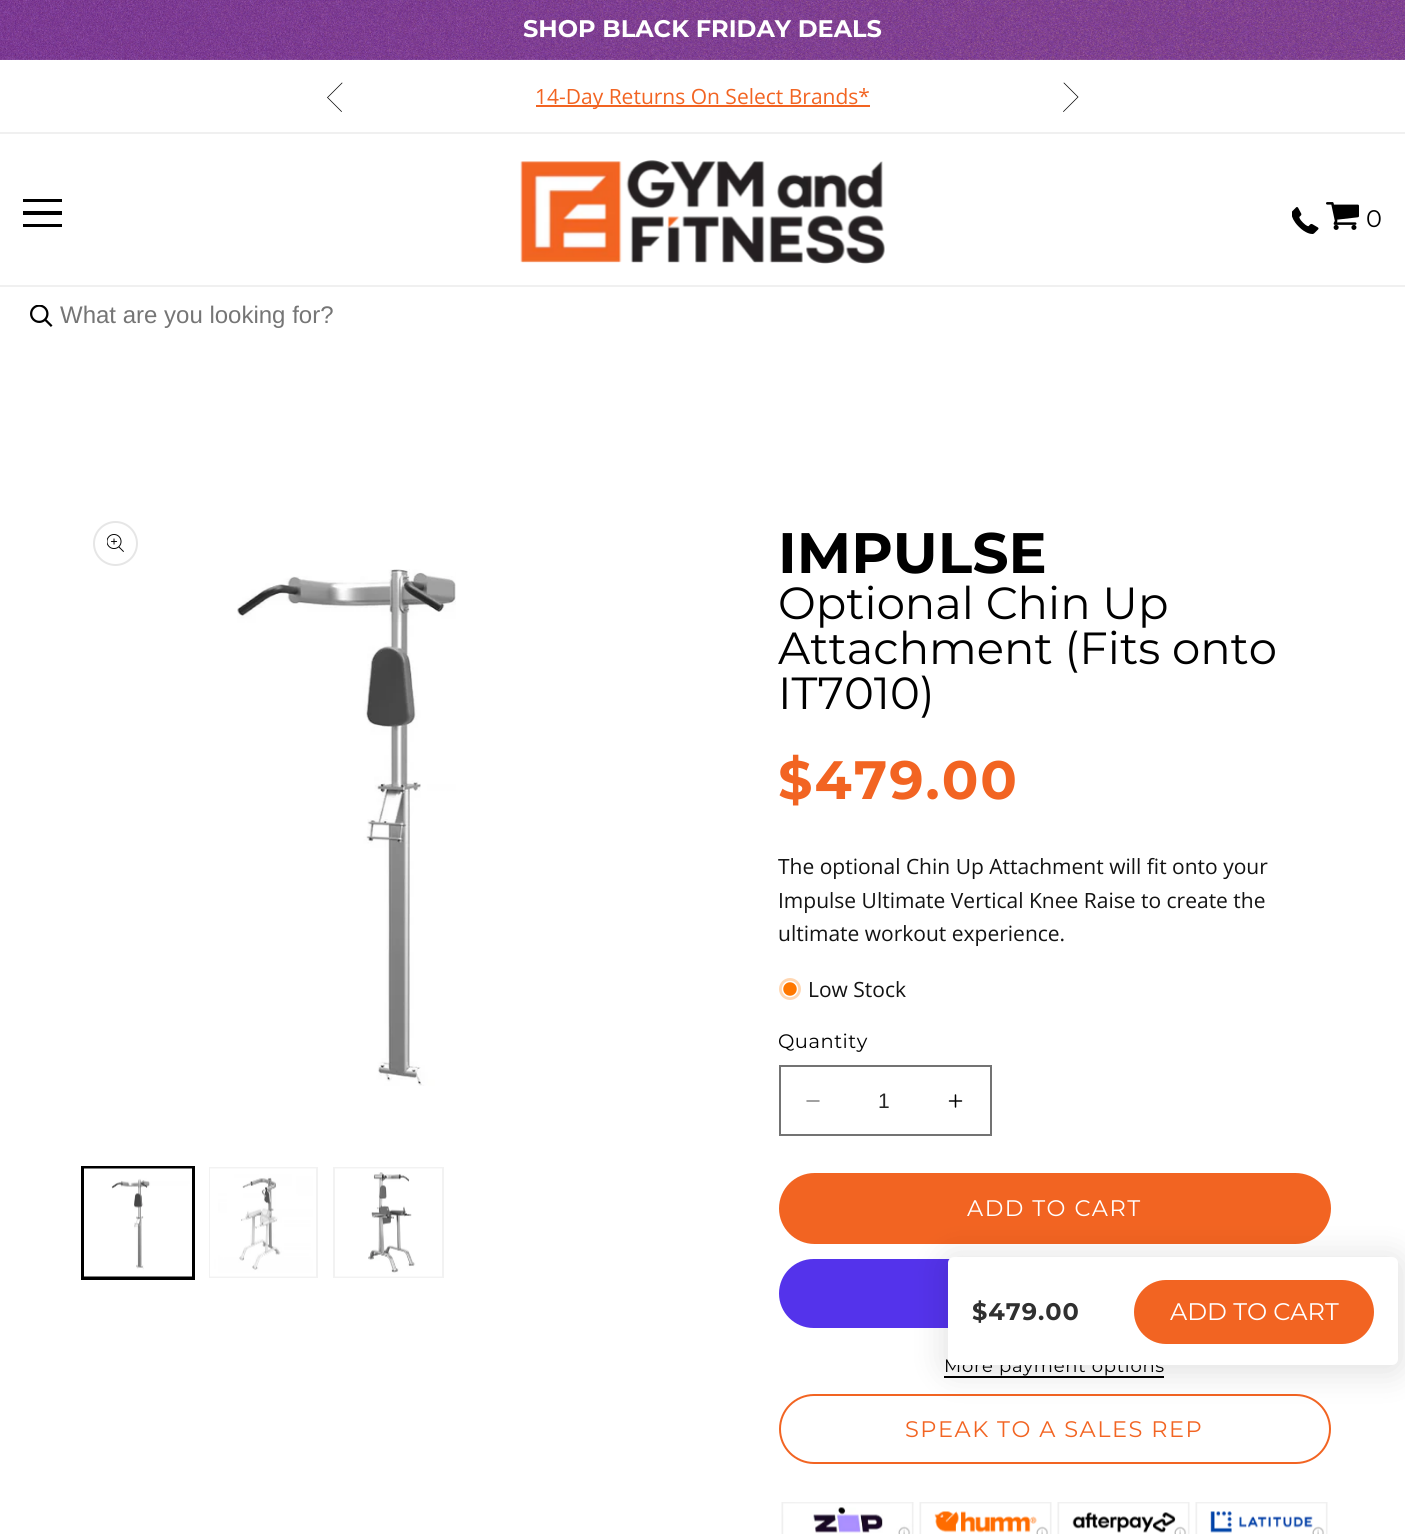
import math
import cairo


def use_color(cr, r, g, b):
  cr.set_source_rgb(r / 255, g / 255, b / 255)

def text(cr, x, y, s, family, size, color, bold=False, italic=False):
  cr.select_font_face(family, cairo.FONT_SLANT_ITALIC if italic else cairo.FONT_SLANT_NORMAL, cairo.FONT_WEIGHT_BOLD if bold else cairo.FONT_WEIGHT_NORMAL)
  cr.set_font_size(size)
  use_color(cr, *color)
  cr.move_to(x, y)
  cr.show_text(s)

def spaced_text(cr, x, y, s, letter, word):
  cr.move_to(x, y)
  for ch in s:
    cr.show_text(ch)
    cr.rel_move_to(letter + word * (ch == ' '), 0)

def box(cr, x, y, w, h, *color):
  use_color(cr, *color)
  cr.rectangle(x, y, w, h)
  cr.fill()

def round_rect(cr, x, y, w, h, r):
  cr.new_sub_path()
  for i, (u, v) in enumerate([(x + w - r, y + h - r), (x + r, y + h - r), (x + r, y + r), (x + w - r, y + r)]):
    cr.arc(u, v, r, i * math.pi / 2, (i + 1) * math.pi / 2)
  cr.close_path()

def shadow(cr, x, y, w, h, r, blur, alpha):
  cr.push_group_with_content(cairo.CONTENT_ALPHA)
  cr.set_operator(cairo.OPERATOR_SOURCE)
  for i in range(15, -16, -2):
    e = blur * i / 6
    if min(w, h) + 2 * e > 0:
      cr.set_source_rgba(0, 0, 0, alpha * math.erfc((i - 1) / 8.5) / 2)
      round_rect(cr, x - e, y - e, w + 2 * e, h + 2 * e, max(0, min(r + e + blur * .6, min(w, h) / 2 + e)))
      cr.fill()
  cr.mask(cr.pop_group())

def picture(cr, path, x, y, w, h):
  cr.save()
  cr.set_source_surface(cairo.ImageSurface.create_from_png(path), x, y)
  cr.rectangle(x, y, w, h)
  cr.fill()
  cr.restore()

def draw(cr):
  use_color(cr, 255, 255, 255)
  cr.paint()
  picture(cr, "img_01.png", 0, 0, 1405, 60)
  box(cr, 0, 132, 1405, 2, 240, 240, 240)
  use_color(cr, 0, 0, 0)
  cr.new_path()
  cr.move_to(327, 97.5)
  cr.line_to(341.5, 112)
  cr.line_to(342, 111.5)
  cr.line_to(328, 97.5)
  cr.line_to(342.5, 83)
  cr.line_to(342, 82.5)
  cr.close_path()
  cr.fill()
  box(cr, 536, 105, 334, 2, 242, 100, 34)
  use_color(cr, 0, 0, 0)
  cr.new_path()
  cr.move_to(1078.5, 97)
  cr.line_to(1064, 82.5)
  cr.line_to(1063.5, 83)
  cr.line_to(1077.5, 97)
  cr.line_to(1063, 111.5)
  cr.line_to(1063.5, 112)
  cr.close_path()
  cr.fill()
  box(cr, 23, 199, 39, 3, 0, 0, 0)
  box(cr, 23, 211, 39, 4, 0, 0, 0)
  box(cr, 23, 224, 39, 3, 0, 0, 0)
  picture(cr, "img_02.png", 520, 160, 365, 104)
  picture(cr, "img_03.png", 1292, 207, 27, 27)
  picture(cr, "img_04.png", 1326, 202, 33, 28)
  box(cr, 0, 285, 1405, 2, 240, 240, 240)
  picture(cr, "img_05.png", 30, 305, 23, 22)
  cr.arc(115.5, 543.5, 21.5, 0, 2 * math.pi)
  use_color(cr, 230, 230, 230)
  cr.stroke()
  picture(cr, "img_06.png", 107, 534, 17, 18)
  picture(cr, "img_07.png", 237, 569, 219, 517)
  cr.rectangle(82, 1167, 112, 112)
  use_color(cr, 0, 0, 0)
  cr.stroke()
  cr.rectangle(84, 1168, 109, 109)
  cr.stroke()
  picture(cr, "img_08.png", 84, 1168, 108, 109)
  cr.rectangle(210, 1168, 107, 109)
  use_color(cr, 242, 242, 242)
  cr.stroke()
  picture(cr, "img_09.png", 210, 1168, 106, 109)
  cr.rectangle(334, 1168, 109, 109)
  cr.stroke()
  picture(cr, "img_10.png", 335, 1168, 107, 109)
  use_color(cr, 255, 215, 179)
  cr.arc(790, 989, 11, 0, 2 * math.pi)
  cr.fill()
  use_color(cr, 255, 120, 0)
  cr.arc(790, 989, 7.5, 0, 2 * math.pi)
  cr.fill_preserve()
  use_color(cr, 255, 255, 255)
  cr.set_line_width(1.5)
  cr.stroke()
  picture(cr, "img_11.png", 806, 1100, 14, 2)
  picture(cr, "img_12.png", 948, 1094, 15, 14)
  cr.rectangle(780, 1066, 211, 69)
  use_color(cr, 115, 115, 115)
  cr.set_line_width(2)
  cr.stroke()
  use_color(cr, 242, 100, 34)
  round_rect(cr, 779, 1173, 552, 71, 35.5)
  cr.fill()
  use_color(cr, 84, 51, 235)
  round_rect(cr, 779, 1259, 552, 69, 34.5)
  cr.fill()
  box(cr, 944, 1376, 220, 2, 0, 0, 0)
  round_rect(cr, 780, 1395, 550, 68, 34)
  use_color(cr, 242, 100, 34)
  cr.stroke()
  picture(cr, "img_13.png", 781, 1502, 133, 32)
  picture(cr, "img_14.png", 919, 1502, 133, 32)
  picture(cr, "img_15.png", 1057, 1502, 133, 32)
  picture(cr, "img_16.png", 1195, 1502, 133, 32)
  use_color(cr, 0, 0, 0)
  shadow(cr, 941, 1253, 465, 123, 14, 15, 0.1)
  text(cr, 523, 37, "SHOP BLACK FRIDAY DEALS", "Montserrat", 24, (255, 255, 255), bold=True)
  text(cr, 535, 104, "14-Day Returns On Select Brands*", "Open Sans", 21, (242, 100, 34))
  cr.select_font_face("Montserrat")
  cr.set_font_size(24)
  use_color(cr, 0, 0, 0)
  spaced_text(cr, 1366, 227, "0", 1, 0)
  text(cr, 60, 323, "What are you looking for?", "Liberation Sans", 24, (117, 117, 117))
  text(cr, 778, 573, "IMPULSE", "Montserrat", 57, (0, 0, 0), bold=True)
  text(cr, 778, 619, "Optional Chin Up", "Montserrat", 45, (0, 0, 0))
  text(cr, 778, 664, "Attachment (Fits onto", "Montserrat", 45, (0, 0, 0))
  text(cr, 778, 709, "IT7010)", "Montserrat", 45, (0, 0, 0))
  cr.select_font_face("Montserrat", cairo.FONT_SLANT_NORMAL, cairo.FONT_WEIGHT_BOLD)
  cr.set_font_size(54)
  use_color(cr, 242, 100, 34)
  spaced_text(cr, 778, 799, "$479.00", 2, 0)
  text(cr, 778, 874, "The optional Chin Up Attachment will fit onto your", "Open Sans", 21, (19, 19, 19))
  text(cr, 778, 908, "Impulse Ultimate Vertical Knee Raise to create the", "Open Sans", 21, (19, 19, 19))
  text(cr, 778, 941, "ultimate workout experience.", "Open Sans", 21, (19, 19, 19))
  text(cr, 808, 997, "Low Stock", "Open Sans", 21, (19, 19, 19))
  cr.select_font_face("Montserrat")
  cr.set_font_size(19.5)
  use_color(cr, 0, 0, 0)
  spaced_text(cr, 778, 1048, "Quantity", 0.5, 0)
  text(cr, 878, 1108, "1", "Liberation Sans", 21, (38, 38, 38))
  cr.select_font_face("Montserrat")
  cr.set_font_size(22.5)
  use_color(cr, 255, 255, 255)
  spaced_text(cr, 967, 1216, "ADD TO CART", 1.5, 0)
  cr.set_font_size(18)
  use_color(cr, 0, 0, 0)
  spaced_text(cr, 944, 1372, "More payment options", 0.75, 0)
  cr.set_font_size(22.5)
  use_color(cr, 242, 100, 34)
  spaced_text(cr, 905, 1437, "SPEAK TO A SALES REP", 1.5, 0)
  use_color(cr, 255, 255, 255)
  round_rect(cr, 948, 1257, 450, 108, 6)
  cr.fill()
  cr.select_font_face("Montserrat", cairo.FONT_SLANT_NORMAL, cairo.FONT_WEIGHT_BOLD)
  cr.set_font_size(24)
  use_color(cr, 48, 48, 48)
  spaced_text(cr, 972, 1320, "$479.00", 1, 0)
  use_color(cr, 242, 100, 34)
  round_rect(cr, 1134, 1280, 240, 64, 32)
  cr.fill()
  text(cr, 1170, 1320, "ADD TO CART", "Montserrat", 24, (255, 255, 255))


surface = cairo.ImageSurface(cairo.FORMAT_RGB24, 1405, 1534)
cr = cairo.Context(surface)
options = cairo.FontOptions()
options.set_hint_metrics(cairo.HINT_METRICS_OFF)
options.set_hint_style(cairo.HINT_STYLE_NONE)
cr.set_font_options(options)
cr.set_miter_limit(4)
draw(cr)
surface.write_to_png("out.png")
